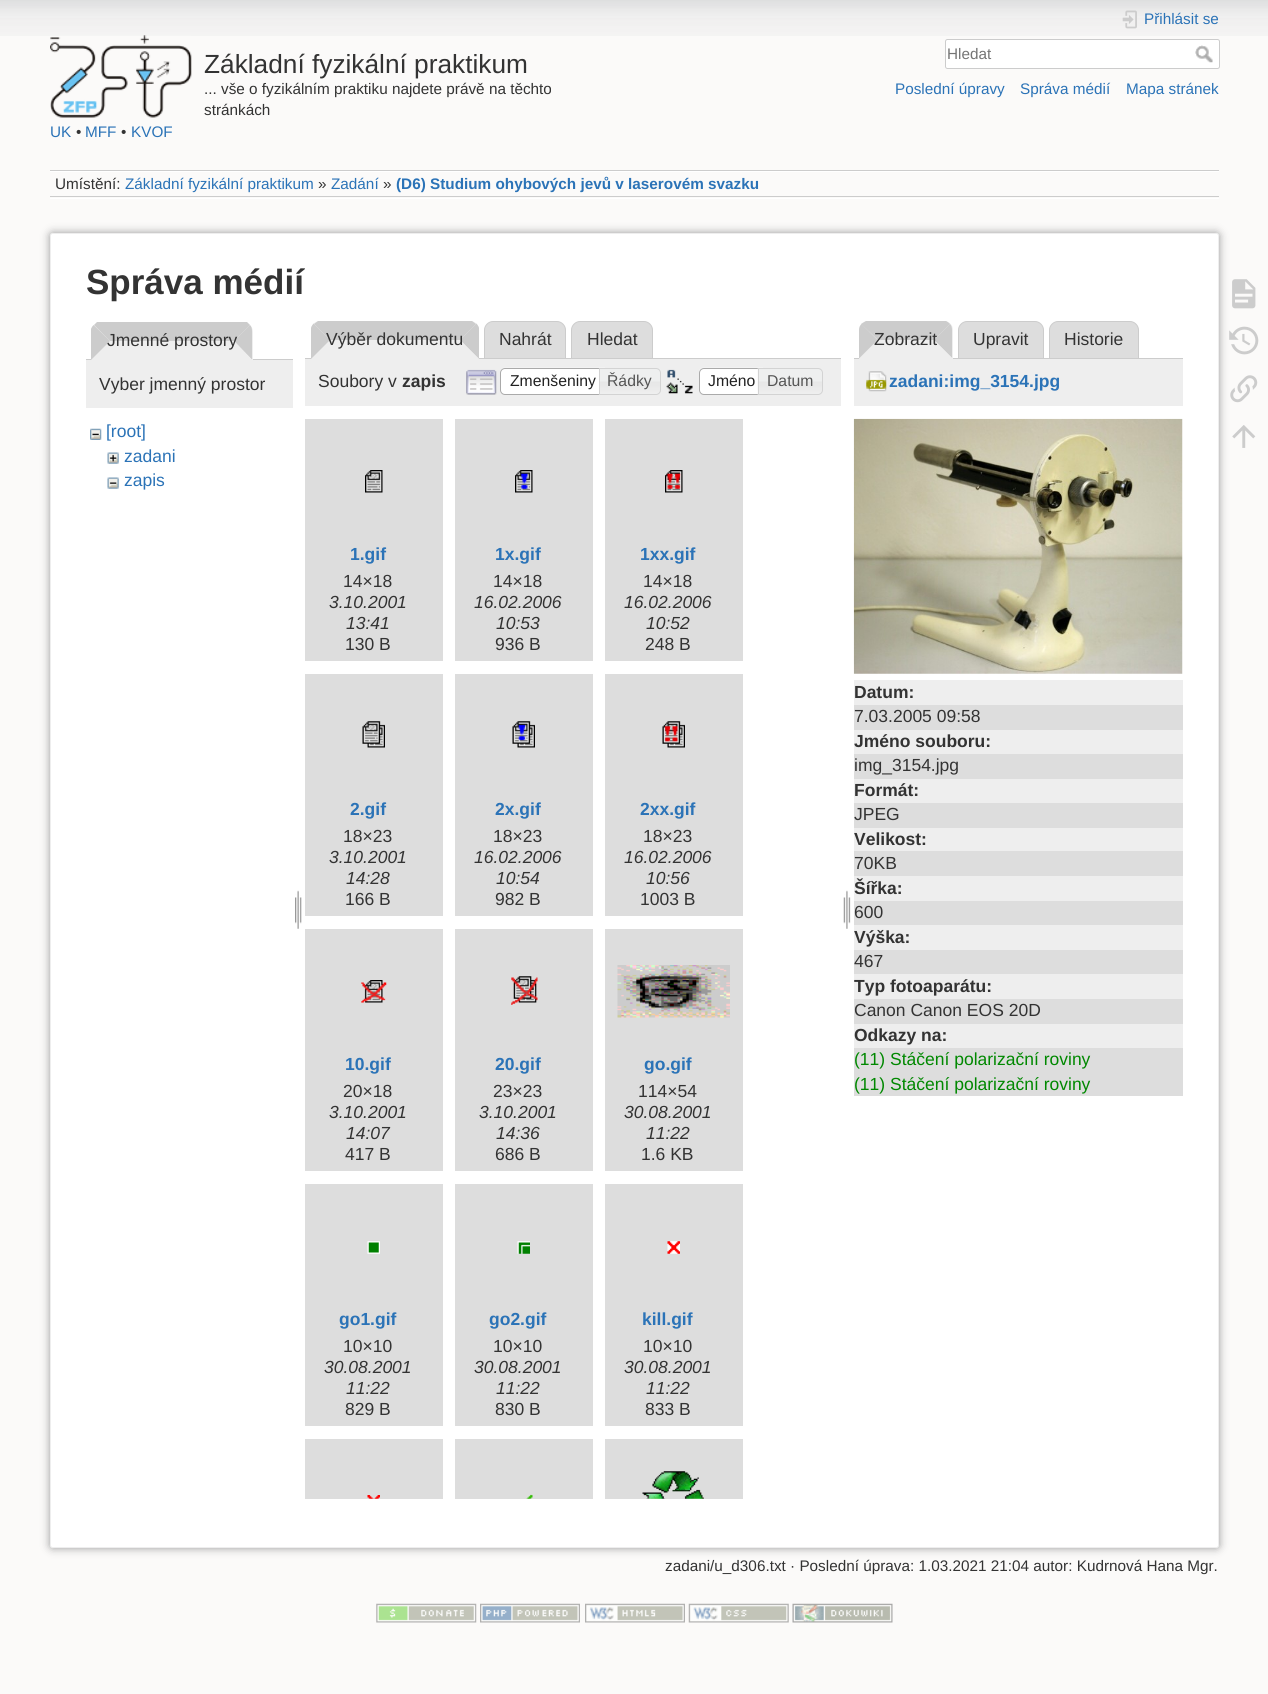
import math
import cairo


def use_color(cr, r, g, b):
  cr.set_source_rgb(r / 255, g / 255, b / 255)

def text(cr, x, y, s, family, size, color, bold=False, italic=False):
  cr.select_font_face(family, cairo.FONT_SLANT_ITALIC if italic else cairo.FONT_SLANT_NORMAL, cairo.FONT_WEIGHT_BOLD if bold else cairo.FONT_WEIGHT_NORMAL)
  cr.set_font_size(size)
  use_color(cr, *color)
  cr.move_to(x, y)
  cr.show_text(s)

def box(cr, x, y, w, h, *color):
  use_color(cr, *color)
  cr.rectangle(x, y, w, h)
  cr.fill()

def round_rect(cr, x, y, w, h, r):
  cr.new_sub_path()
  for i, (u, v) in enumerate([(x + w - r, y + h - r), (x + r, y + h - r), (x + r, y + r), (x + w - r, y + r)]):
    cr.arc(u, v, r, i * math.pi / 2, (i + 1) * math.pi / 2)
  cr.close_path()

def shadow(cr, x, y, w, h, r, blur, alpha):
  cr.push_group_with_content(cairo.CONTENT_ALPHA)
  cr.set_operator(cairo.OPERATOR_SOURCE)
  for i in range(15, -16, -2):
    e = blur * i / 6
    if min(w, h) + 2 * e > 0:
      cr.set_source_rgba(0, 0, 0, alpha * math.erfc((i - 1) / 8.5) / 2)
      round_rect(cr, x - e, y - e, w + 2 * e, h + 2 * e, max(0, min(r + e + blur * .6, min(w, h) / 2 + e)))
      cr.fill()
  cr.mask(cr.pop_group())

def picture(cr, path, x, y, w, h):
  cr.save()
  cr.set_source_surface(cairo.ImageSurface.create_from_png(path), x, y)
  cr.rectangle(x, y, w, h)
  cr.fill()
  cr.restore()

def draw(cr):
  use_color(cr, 251, 250, 249)
  cr.paint()
  picture(cr, "img_01.png", 0, 0, 1268, 36)
  picture(cr, "img_02.png", 50, 35, 142, 83)
  picture(cr, "img_03.png", 1122, 10, 15, 19)
  use_color(cr, 255, 255, 255)
  round_rect(cr, 945.5, 39.5, 274, 29, 2)
  cr.fill_preserve()
  use_color(cr, 204, 204, 204)
  cr.set_line_width(1)
  cr.stroke()
  picture(cr, "img_04.png", 1195, 45, 18, 18)
  box(cr, 50, 170, 1169, 1, 204, 204, 204)
  box(cr, 50, 198, 1169, 1, 255, 255, 255)
  box(cr, 50, 171, 1169, 1, 255, 255, 255)
  box(cr, 50, 196, 1169, 1, 204, 204, 204)
  use_color(cr, 153, 153, 153)
  shadow(cr, 50, 233, 1169, 1315, 2.5, 4.5, 1)
  use_color(cr, 255, 255, 255)
  round_rect(cr, 50.5, 233.5, 1168, 1314, 2)
  cr.fill_preserve()
  use_color(cr, 238, 238, 238)
  cr.stroke()
  box(cr, 86, 359, 207, 1, 204, 204, 204)
  use_color(cr, 238, 238, 238)
  cr.new_path()
  cr.move_to(100, 323)
  cr.line_to(244, 323)
  cr.curve_to(249, 323, 253, 327, 253, 332)
  cr.line_to(253, 360)
  cr.line_to(91, 360)
  cr.line_to(91, 332)
  cr.curve_to(91, 327, 95, 323, 100, 323)
  cr.close_path()
  cr.fill()
  use_color(cr, 204, 204, 204)
  cr.new_path()
  cr.move_to(247, 322)
  cr.line_to(97, 322)
  cr.line_to(94, 325)
  cr.line_to(110, 341)
  cr.line_to(234, 341)
  cr.line_to(250, 325)
  cr.close_path()
  cr.fill()
  cr.new_path()
  cr.move_to(250, 325)
  cr.line_to(234, 341)
  cr.line_to(252, 359.5)
  cr.line_to(252, 331)
  cr.curve_to(252, 328.5, 251.5, 326.5, 250, 325)
  cr.close_path()
  cr.fill()
  use_color(cr, 238, 238, 238)
  cr.new_path()
  cr.move_to(252, 360)
  cr.line_to(234, 341)
  cr.line_to(110, 341)
  cr.line_to(91, 360)
  cr.close_path()
  cr.fill()
  use_color(cr, 204, 204, 204)
  cr.new_path()
  cr.move_to(91, 360)
  cr.line_to(110, 341)
  cr.line_to(93.5, 325)
  cr.curve_to(92.5, 326, 91.5, 327.5, 91, 329)
  cr.close_path()
  cr.fill()
  box(cr, 86, 360, 207, 48, 238, 238, 238)
  picture(cr, "img_05.png", 90, 428, 12, 12)
  picture(cr, "img_06.png", 107, 452, 12, 12)
  picture(cr, "img_07.png", 107, 477, 12, 12)
  picture(cr, "img_08.png", 295, 890, 7, 39)
  use_color(cr, 221, 221, 221)
  cr.new_path()
  cr.move_to(493, 321.5)
  cr.line_to(557, 321.5)
  cr.curve_to(561.5, 321.5, 565.5, 325.5, 565.5, 330)
  cr.line_to(565.5, 358.5)
  cr.line_to(484.5, 358.5)
  cr.line_to(484.5, 330)
  cr.curve_to(484.5, 325.5, 488.5, 321.5, 493, 321.5)
  cr.close_path()
  cr.fill_preserve()
  use_color(cr, 204, 204, 204)
  cr.stroke()
  use_color(cr, 221, 221, 221)
  cr.new_path()
  cr.move_to(580, 321.5)
  cr.line_to(644, 321.5)
  cr.curve_to(648.5, 321.5, 652.5, 325.5, 652.5, 330)
  cr.line_to(652.5, 358.5)
  cr.line_to(571.5, 358.5)
  cr.line_to(571.5, 330)
  cr.curve_to(571.5, 325.5, 575.5, 321.5, 580, 321.5)
  cr.close_path()
  cr.fill_preserve()
  use_color(cr, 204, 204, 204)
  cr.stroke()
  box(cr, 305, 358, 536, 1, 204, 204, 204)
  use_color(cr, 238, 238, 238)
  cr.new_path()
  cr.move_to(320, 321)
  cr.line_to(470, 321)
  cr.curve_to(475, 321, 479, 325, 479, 330)
  cr.line_to(479, 359)
  cr.line_to(311, 359)
  cr.line_to(311, 330)
  cr.curve_to(311, 325, 315, 321, 320, 321)
  cr.close_path()
  cr.fill()
  use_color(cr, 204, 204, 204)
  cr.new_path()
  cr.move_to(472, 321)
  cr.line_to(318, 321)
  cr.line_to(314, 324)
  cr.line_to(330, 340)
  cr.line_to(460, 340)
  cr.line_to(476, 324)
  cr.close_path()
  cr.fill()
  cr.new_path()
  cr.move_to(476.5, 323.5)
  cr.line_to(460, 340)
  cr.line_to(479, 359)
  cr.line_to(479, 328)
  cr.curve_to(478.5, 326, 477.5, 325, 476.5, 323.5)
  cr.close_path()
  cr.fill()
  use_color(cr, 238, 238, 238)
  cr.new_path()
  cr.move_to(479, 359)
  cr.line_to(460, 340)
  cr.line_to(330, 340)
  cr.line_to(311, 359)
  cr.close_path()
  cr.fill()
  use_color(cr, 204, 204, 204)
  cr.new_path()
  cr.move_to(311, 359)
  cr.line_to(330, 340)
  cr.line_to(313.5, 323.5)
  cr.curve_to(312.5, 325, 311.5, 326, 311, 328)
  cr.close_path()
  cr.fill()
  box(cr, 305, 359, 536, 47, 238, 238, 238)
  picture(cr, "img_09.png", 466, 369, 31, 26)
  picture(cr, "img_10.png", 500, 367, 105, 27)
  cr.new_path()
  cr.move_to(505, 368.5)
  cr.line_to(604.5, 368.5)
  cr.line_to(604.5, 394.5)
  cr.line_to(505, 394.5)
  cr.curve_to(502.5, 394.5, 500.5, 392.5, 500.5, 390)
  cr.line_to(500.5, 373)
  cr.curve_to(500.5, 370.5, 502.5, 368.5, 505, 368.5)
  cr.close_path()
  use_color(cr, 170, 170, 170)
  cr.stroke()
  picture(cr, "img_11.png", 598, 368, 63, 27)
  cr.new_path()
  cr.move_to(599.5, 368.5)
  cr.line_to(656, 368.5)
  cr.curve_to(658.5, 368.5, 660.5, 370.5, 660.5, 373)
  cr.line_to(660.5, 390)
  cr.curve_to(660.5, 392.5, 658.5, 394.5, 656, 394.5)
  cr.line_to(599.5, 394.5)
  cr.close_path()
  use_color(cr, 211, 211, 211)
  cr.stroke()
  picture(cr, "img_12.png", 666, 369, 27, 25)
  picture(cr, "img_13.png", 699, 367, 64, 27)
  cr.new_path()
  cr.move_to(704, 368.5)
  cr.line_to(763.5, 368.5)
  cr.line_to(763.5, 394.5)
  cr.line_to(704, 394.5)
  cr.curve_to(701.5, 394.5, 699.5, 392.5, 699.5, 390)
  cr.line_to(699.5, 373)
  cr.curve_to(699.5, 370.5, 701.5, 368.5, 704, 368.5)
  cr.close_path()
  use_color(cr, 170, 170, 170)
  cr.stroke()
  picture(cr, "img_14.png", 757, 368, 65, 27)
  cr.new_path()
  cr.move_to(758.5, 368.5)
  cr.line_to(818, 368.5)
  cr.curve_to(820.5, 368.5, 822.5, 370.5, 822.5, 373)
  cr.line_to(822.5, 390)
  cr.curve_to(822.5, 392.5, 820.5, 394.5, 818, 394.5)
  cr.line_to(758.5, 394.5)
  cr.close_path()
  use_color(cr, 211, 211, 211)
  cr.stroke()
  box(cr, 305, 419, 138, 242, 221, 221, 221)
  picture(cr, "img_15.png", 365, 470, 18, 23)
  box(cr, 455, 419, 138, 242, 221, 221, 221)
  picture(cr, "img_16.png", 515, 470, 18, 23)
  box(cr, 605, 419, 138, 242, 221, 221, 221)
  picture(cr, "img_17.png", 665, 470, 18, 23)
  box(cr, 305, 674, 138, 242, 221, 221, 221)
  picture(cr, "img_18.png", 362, 721, 23, 27)
  box(cr, 455, 674, 138, 242, 221, 221, 221)
  picture(cr, "img_19.png", 512, 721, 23, 27)
  box(cr, 605, 674, 138, 242, 221, 221, 221)
  picture(cr, "img_20.png", 662, 721, 23, 27)
  box(cr, 305, 929, 138, 242, 221, 221, 221)
  picture(cr, "img_21.png", 361, 980, 26, 23)
  box(cr, 455, 929, 138, 242, 221, 221, 221)
  picture(cr, "img_22.png", 511, 976, 27, 29)
  box(cr, 605, 929, 138, 242, 221, 221, 221)
  picture(cr, "img_23.png", 617, 965, 113, 53)
  box(cr, 305, 1184, 138, 242, 221, 221, 221)
  picture(cr, "img_24.png", 367, 1241, 13, 13)
  box(cr, 455, 1184, 138, 242, 221, 221, 221)
  picture(cr, "img_25.png", 517, 1241, 13, 13)
  box(cr, 605, 1184, 138, 242, 221, 221, 221)
  picture(cr, "img_26.png", 667, 1241, 13, 13)
  box(cr, 305, 1439, 138, 60, 221, 221, 221)
  picture(cr, "img_27.png", 367, 1495, 13, 4)
  box(cr, 455, 1439, 138, 60, 221, 221, 221)
  picture(cr, "img_28.png", 526, 1494, 7, 5)
  box(cr, 605, 1439, 138, 60, 221, 221, 221)
  picture(cr, "img_29.png", 642, 1471, 62, 28)
  picture(cr, "img_30.png", 843, 890, 8, 39)
  cr.new_path()
  cr.move_to(967, 321.5)
  cr.line_to(1035, 321.5)
  cr.curve_to(1039.5, 321.5, 1043.5, 325.5, 1043.5, 330)
  cr.line_to(1043.5, 358.5)
  cr.line_to(958.5, 358.5)
  cr.line_to(958.5, 330)
  cr.curve_to(958.5, 325.5, 962.5, 321.5, 967, 321.5)
  cr.close_path()
  cr.fill_preserve()
  use_color(cr, 204, 204, 204)
  cr.stroke()
  use_color(cr, 221, 221, 221)
  cr.new_path()
  cr.move_to(1058, 321.5)
  cr.line_to(1130, 321.5)
  cr.curve_to(1134.5, 321.5, 1138.5, 325.5, 1138.5, 330)
  cr.line_to(1138.5, 358.5)
  cr.line_to(1049.5, 358.5)
  cr.line_to(1049.5, 330)
  cr.curve_to(1049.5, 325.5, 1053.5, 321.5, 1058, 321.5)
  cr.close_path()
  cr.fill_preserve()
  use_color(cr, 204, 204, 204)
  cr.stroke()
  box(cr, 854, 358, 329, 1, 204, 204, 204)
  use_color(cr, 238, 238, 238)
  cr.new_path()
  cr.move_to(868, 321)
  cr.line_to(944, 321)
  cr.curve_to(949, 321, 953, 325, 953, 330)
  cr.line_to(953, 359)
  cr.line_to(859, 359)
  cr.line_to(859, 330)
  cr.curve_to(859, 325, 863, 321, 868, 321)
  cr.close_path()
  cr.fill()
  use_color(cr, 204, 204, 204)
  cr.new_path()
  cr.move_to(946, 321)
  cr.line_to(866, 321)
  cr.curve_to(864, 322, 863, 323, 861, 324)
  cr.line_to(878, 340)
  cr.line_to(934, 340)
  cr.line_to(950, 324)
  cr.curve_to(949, 323, 948, 322, 946, 321)
  cr.close_path()
  cr.fill()
  cr.new_path()
  cr.move_to(950, 324)
  cr.line_to(934, 340)
  cr.line_to(952, 358)
  cr.line_to(952, 330)
  cr.curve_to(952, 327.5, 951.5, 325.5, 950, 324)
  cr.close_path()
  cr.fill()
  use_color(cr, 238, 238, 238)
  cr.new_path()
  cr.move_to(952, 358)
  cr.line_to(934, 340)
  cr.line_to(878, 340)
  cr.line_to(859, 359)
  cr.line_to(952, 359)
  cr.close_path()
  cr.fill()
  use_color(cr, 204, 204, 204)
  cr.new_path()
  cr.move_to(859, 358.5)
  cr.line_to(877.5, 340)
  cr.line_to(861.5, 324)
  cr.curve_to(860, 325.5, 859, 327.5, 859, 330)
  cr.close_path()
  cr.fill()
  box(cr, 854, 359, 329, 47, 238, 238, 238)
  picture(cr, "img_31.png", 866, 371, 21, 21)
  picture(cr, "img_32.png", 853, 418, 330, 256)
  box(cr, 854, 680, 329, 25, 238, 238, 238)
  box(cr, 854, 705, 329, 25, 221, 221, 221)
  box(cr, 854, 730, 329, 24, 238, 238, 238)
  box(cr, 854, 754, 329, 25, 221, 221, 221)
  box(cr, 854, 779, 329, 24, 238, 238, 238)
  box(cr, 854, 803, 329, 25, 221, 221, 221)
  box(cr, 854, 828, 329, 23, 238, 238, 238)
  box(cr, 854, 851, 329, 25, 221, 221, 221)
  box(cr, 854, 876, 329, 25, 238, 238, 238)
  box(cr, 854, 901, 329, 24, 221, 221, 221)
  box(cr, 854, 925, 329, 25, 238, 238, 238)
  box(cr, 854, 950, 329, 24, 221, 221, 221)
  box(cr, 854, 974, 329, 25, 238, 238, 238)
  box(cr, 854, 999, 329, 25, 221, 221, 221)
  box(cr, 854, 1024, 329, 24, 238, 238, 238)
  box(cr, 854, 1048, 329, 48, 221, 221, 221)
  picture(cr, "img_33.png", 1232, 279, 24, 30)
  picture(cr, "img_34.png", 1229, 326, 30, 29)
  picture(cr, "img_35.png", 1230, 375, 28, 28)
  picture(cr, "img_36.png", 1232, 425, 24, 23)
  picture(cr, "img_37.png", 376, 1603, 101, 20)
  picture(cr, "img_38.png", 480, 1603, 100, 20)
  picture(cr, "img_39.png", 585, 1603, 100, 20)
  picture(cr, "img_40.png", 688, 1603, 101, 20)
  picture(cr, "img_41.png", 792, 1603, 101, 20)
  text(cr, 204, 73, "Základní fyzikální praktikum", "Liberation Sans", 26.25, (51, 51, 51))
  text(cr, 204, 94, "... vše o fyzikálním praktiku najdete právě na těchto", "Liberation Sans", 15.3, (51, 51, 51))
  text(cr, 204, 115, "stránkách", "Liberation Sans", 15.3, (51, 51, 51))
  text(cr, 50, 137, "UK", "Liberation Sans", 15.3, (43, 115, 183))
  text(cr, 76, 137, "•", "Liberation Sans", 15.3, (51, 51, 51))
  text(cr, 85, 137, "MFF", "Liberation Sans", 15.3, (43, 115, 183))
  text(cr, 121, 137, "•", "Liberation Sans", 15.3, (51, 51, 51))
  text(cr, 131, 137, "KVOF", "Liberation Sans", 15.3, (43, 115, 183))
  text(cr, 1144, 24, "Přihlásit se", "Liberation Sans", 15.3, (43, 115, 183))
  text(cr, 947, 59, "Hledat", "Liberation Sans", 15.3, (117, 117, 117))
  text(cr, 895, 94, "Poslední úpravy", "Liberation Sans", 15.3, (43, 115, 183))
  text(cr, 1020, 94, "Správa médií", "Liberation Sans", 15.3, (43, 115, 183))
  text(cr, 1126, 94, "Mapa stránek", "Liberation Sans", 15.3, (43, 115, 183))
  text(cr, 55, 189, "Umístění:", "Liberation Sans", 15.3, (51, 51, 51))
  text(cr, 125, 189, "Základní fyzikální praktikum", "Liberation Sans", 15.3, (43, 115, 183))
  text(cr, 318, 189, "»", "Liberation Sans", 15.3, (51, 51, 51))
  text(cr, 331, 189, "Zadání", "Liberation Sans", 15.3, (43, 115, 183))
  text(cr, 383, 189, "»", "Liberation Sans", 15.3, (51, 51, 51))
  text(cr, 396, 189, "(D6) Studium ohybových jevů v laserovém svazku", "Liberation Sans", 15.3, (43, 115, 183), bold=True)
  text(cr, 86, 294, "Správa médií", "Liberation Sans", 35, (51, 51, 51), bold=True)
  text(cr, 107, 346, "Jmenné prostory", "Liberation Sans", 17.5, (51, 51, 51))
  text(cr, 99, 390, "Vyber jmenný prostor", "Liberation Sans", 17.5, (51, 51, 51))
  text(cr, 106, 437, "[root]", "Liberation Sans", 17.5, (43, 115, 183))
  text(cr, 124, 462, "zadani", "Liberation Sans", 17.5, (43, 115, 183))
  text(cr, 124, 486, "zapis", "Liberation Sans", 17.5, (43, 115, 183))
  text(cr, 326, 345, "Výběr dokumentu", "Liberation Sans", 17.5, (51, 51, 51))
  text(cr, 499, 345, "Nahrát", "Liberation Sans", 17.5, (51, 51, 51))
  text(cr, 587, 345, "Hledat", "Liberation Sans", 17.5, (51, 51, 51))
  text(cr, 318, 387, "Soubory v", "Liberation Sans", 17.5, (51, 51, 51))
  text(cr, 402, 387, "zapis", "Liberation Sans", 17.5, (51, 51, 51), bold=True)
  text(cr, 510, 386, "Zmenšeniny", "Liberation Sans", 15.75, (33, 33, 33))
  text(cr, 607, 386, "Řádky", "Liberation Sans", 15.75, (85, 85, 85))
  text(cr, 708, 386, "Jméno", "Liberation Sans", 15.75, (33, 33, 33))
  text(cr, 767, 386, "Datum", "Liberation Sans", 15.75, (85, 85, 85))
  text(cr, 350, 560, "1.gif", "Liberation Sans", 17.5, (43, 115, 183), bold=True)
  text(cr, 343, 587, "14×18", "Liberation Sans", 17.5, (51, 51, 51))
  text(cr, 329, 608, "3.10.2001", "Liberation Sans", 17.5, (51, 51, 51), italic=True)
  text(cr, 346, 629, "13:41", "Liberation Sans", 17.5, (51, 51, 51), italic=True)
  text(cr, 345, 650, "130 B", "Liberation Sans", 17.5, (51, 51, 51))
  text(cr, 495, 560, "1x.gif", "Liberation Sans", 17.5, (43, 115, 183), bold=True)
  text(cr, 493, 587, "14×18", "Liberation Sans", 17.5, (51, 51, 51))
  text(cr, 474, 608, "16.02.2006", "Liberation Sans", 17.5, (51, 51, 51), italic=True)
  text(cr, 496, 629, "10:53", "Liberation Sans", 17.5, (51, 51, 51), italic=True)
  text(cr, 495, 650, "936 B", "Liberation Sans", 17.5, (51, 51, 51))
  text(cr, 640, 560, "1xx.gif", "Liberation Sans", 17.5, (43, 115, 183), bold=True)
  text(cr, 643, 587, "14×18", "Liberation Sans", 17.5, (51, 51, 51))
  text(cr, 624, 608, "16.02.2006", "Liberation Sans", 17.5, (51, 51, 51), italic=True)
  text(cr, 646, 629, "10:52", "Liberation Sans", 17.5, (51, 51, 51), italic=True)
  text(cr, 645, 650, "248 B", "Liberation Sans", 17.5, (51, 51, 51))
  text(cr, 350, 815, "2.gif", "Liberation Sans", 17.5, (43, 115, 183), bold=True)
  text(cr, 343, 842, "18×23", "Liberation Sans", 17.5, (51, 51, 51))
  text(cr, 329, 863, "3.10.2001", "Liberation Sans", 17.5, (51, 51, 51), italic=True)
  text(cr, 346, 884, "14:28", "Liberation Sans", 17.5, (51, 51, 51), italic=True)
  text(cr, 345, 905, "166 B", "Liberation Sans", 17.5, (51, 51, 51))
  text(cr, 495, 815, "2x.gif", "Liberation Sans", 17.5, (43, 115, 183), bold=True)
  text(cr, 493, 842, "18×23", "Liberation Sans", 17.5, (51, 51, 51))
  text(cr, 474, 863, "16.02.2006", "Liberation Sans", 17.5, (51, 51, 51), italic=True)
  text(cr, 496, 884, "10:54", "Liberation Sans", 17.5, (51, 51, 51), italic=True)
  text(cr, 495, 905, "982 B", "Liberation Sans", 17.5, (51, 51, 51))
  text(cr, 640, 815, "2xx.gif", "Liberation Sans", 17.5, (43, 115, 183), bold=True)
  text(cr, 643, 842, "18×23", "Liberation Sans", 17.5, (51, 51, 51))
  text(cr, 624, 863, "16.02.2006", "Liberation Sans", 17.5, (51, 51, 51), italic=True)
  text(cr, 646, 884, "10:56", "Liberation Sans", 17.5, (51, 51, 51), italic=True)
  text(cr, 640, 905, "1003 B", "Liberation Sans", 17.5, (51, 51, 51))
  text(cr, 345, 1070, "10.gif", "Liberation Sans", 17.5, (43, 115, 183), bold=True)
  text(cr, 343, 1097, "20×18", "Liberation Sans", 17.5, (51, 51, 51))
  text(cr, 329, 1118, "3.10.2001", "Liberation Sans", 17.5, (51, 51, 51), italic=True)
  text(cr, 346, 1139, "14:07", "Liberation Sans", 17.5, (51, 51, 51), italic=True)
  text(cr, 345, 1160, "417 B", "Liberation Sans", 17.5, (51, 51, 51))
  text(cr, 495, 1070, "20.gif", "Liberation Sans", 17.5, (43, 115, 183), bold=True)
  text(cr, 493, 1097, "23×23", "Liberation Sans", 17.5, (51, 51, 51))
  text(cr, 479, 1118, "3.10.2001", "Liberation Sans", 17.5, (51, 51, 51), italic=True)
  text(cr, 496, 1139, "14:36", "Liberation Sans", 17.5, (51, 51, 51), italic=True)
  text(cr, 495, 1160, "686 B", "Liberation Sans", 17.5, (51, 51, 51))
  text(cr, 644, 1070, "go.gif", "Liberation Sans", 17.5, (43, 115, 183), bold=True)
  text(cr, 638, 1097, "114×54", "Liberation Sans", 17.5, (51, 51, 51))
  text(cr, 624, 1118, "30.08.2001", "Liberation Sans", 17.5, (51, 51, 51), italic=True)
  text(cr, 646, 1139, "11:22", "Liberation Sans", 17.5, (51, 51, 51), italic=True)
  text(cr, 641, 1160, "1.6 KB", "Liberation Sans", 17.5, (51, 51, 51))
  text(cr, 339, 1325, "go1.gif", "Liberation Sans", 17.5, (43, 115, 183), bold=True)
  text(cr, 343, 1352, "10×10", "Liberation Sans", 17.5, (51, 51, 51))
  text(cr, 324, 1373, "30.08.2001", "Liberation Sans", 17.5, (51, 51, 51), italic=True)
  text(cr, 346, 1394, "11:22", "Liberation Sans", 17.5, (51, 51, 51), italic=True)
  text(cr, 345, 1415, "829 B", "Liberation Sans", 17.5, (51, 51, 51))
  text(cr, 489, 1325, "go2.gif", "Liberation Sans", 17.5, (43, 115, 183), bold=True)
  text(cr, 493, 1352, "10×10", "Liberation Sans", 17.5, (51, 51, 51))
  text(cr, 474, 1373, "30.08.2001", "Liberation Sans", 17.5, (51, 51, 51), italic=True)
  text(cr, 496, 1394, "11:22", "Liberation Sans", 17.5, (51, 51, 51), italic=True)
  text(cr, 495, 1415, "830 B", "Liberation Sans", 17.5, (51, 51, 51))
  text(cr, 642, 1325, "kill.gif", "Liberation Sans", 17.5, (43, 115, 183), bold=True)
  text(cr, 643, 1352, "10×10", "Liberation Sans", 17.5, (51, 51, 51))
  text(cr, 624, 1373, "30.08.2001", "Liberation Sans", 17.5, (51, 51, 51), italic=True)
  text(cr, 646, 1394, "11:22", "Liberation Sans", 17.5, (51, 51, 51), italic=True)
  text(cr, 645, 1415, "833 B", "Liberation Sans", 17.5, (51, 51, 51))
  text(cr, 874, 345, "Zobrazit", "Liberation Sans", 17.5, (51, 51, 51))
  text(cr, 973, 345, "Upravit", "Liberation Sans", 17.5, (51, 51, 51))
  text(cr, 1064, 345, "Historie", "Liberation Sans", 17.5, (51, 51, 51))
  text(cr, 889, 387, "zadani:img_3154.jpg", "Liberation Sans", 17.5, (43, 115, 183), bold=True)
  text(cr, 854, 698, "Datum:", "Liberation Sans", 17.5, (51, 51, 51), bold=True)
  text(cr, 854, 722, "7.03.2005 09:58", "Liberation Sans", 17.5, (51, 51, 51))
  text(cr, 854, 747, "Jméno souboru:", "Liberation Sans", 17.5, (51, 51, 51), bold=True)
  text(cr, 854, 771, "img_3154.jpg", "Liberation Sans", 17.5, (51, 51, 51))
  text(cr, 854, 796, "Formát:", "Liberation Sans", 17.5, (51, 51, 51), bold=True)
  text(cr, 854, 820, "JPEG", "Liberation Sans", 17.5, (51, 51, 51))
  text(cr, 854, 845, "Velikost:", "Liberation Sans", 17.5, (51, 51, 51), bold=True)
  text(cr, 854, 869, "70KB", "Liberation Sans", 17.5, (51, 51, 51))
  text(cr, 854, 894, "Šířka:", "Liberation Sans", 17.5, (51, 51, 51), bold=True)
  text(cr, 854, 918, "600", "Liberation Sans", 17.5, (51, 51, 51))
  text(cr, 854, 943, "Výška:", "Liberation Sans", 17.5, (51, 51, 51), bold=True)
  text(cr, 854, 967, "467", "Liberation Sans", 17.5, (51, 51, 51))
  text(cr, 854, 992, "Typ fotoaparátu:", "Liberation Sans", 17.5, (51, 51, 51), bold=True)
  text(cr, 854, 1016, "Canon Canon EOS 20D", "Liberation Sans", 17.5, (51, 51, 51))
  text(cr, 854, 1041, "Odkazy na:", "Liberation Sans", 17.5, (51, 51, 51), bold=True)
  text(cr, 854, 1065, "(11) Stáčení polarizační roviny", "Liberation Sans", 17.5, (0, 136, 0))
  text(cr, 854, 1090, "(11) Stáčení polarizační roviny", "Liberation Sans", 17.5, (0, 136, 0))
  text(cr, 665, 1571, "zadani/u_d306.txt · Poslední úprava: 1.03.2021 21:04 autor: Kudrnová Hana Mgr.", "Liberation Sans", 15.3, (51, 51, 51))


surface = cairo.ImageSurface(cairo.FORMAT_RGB24, 1268, 1694)
cr = cairo.Context(surface)
options = cairo.FontOptions()
options.set_hint_metrics(cairo.HINT_METRICS_OFF)
options.set_hint_style(cairo.HINT_STYLE_NONE)
cr.set_font_options(options)
cr.set_miter_limit(4)
draw(cr)
surface.write_to_png("out.png")
